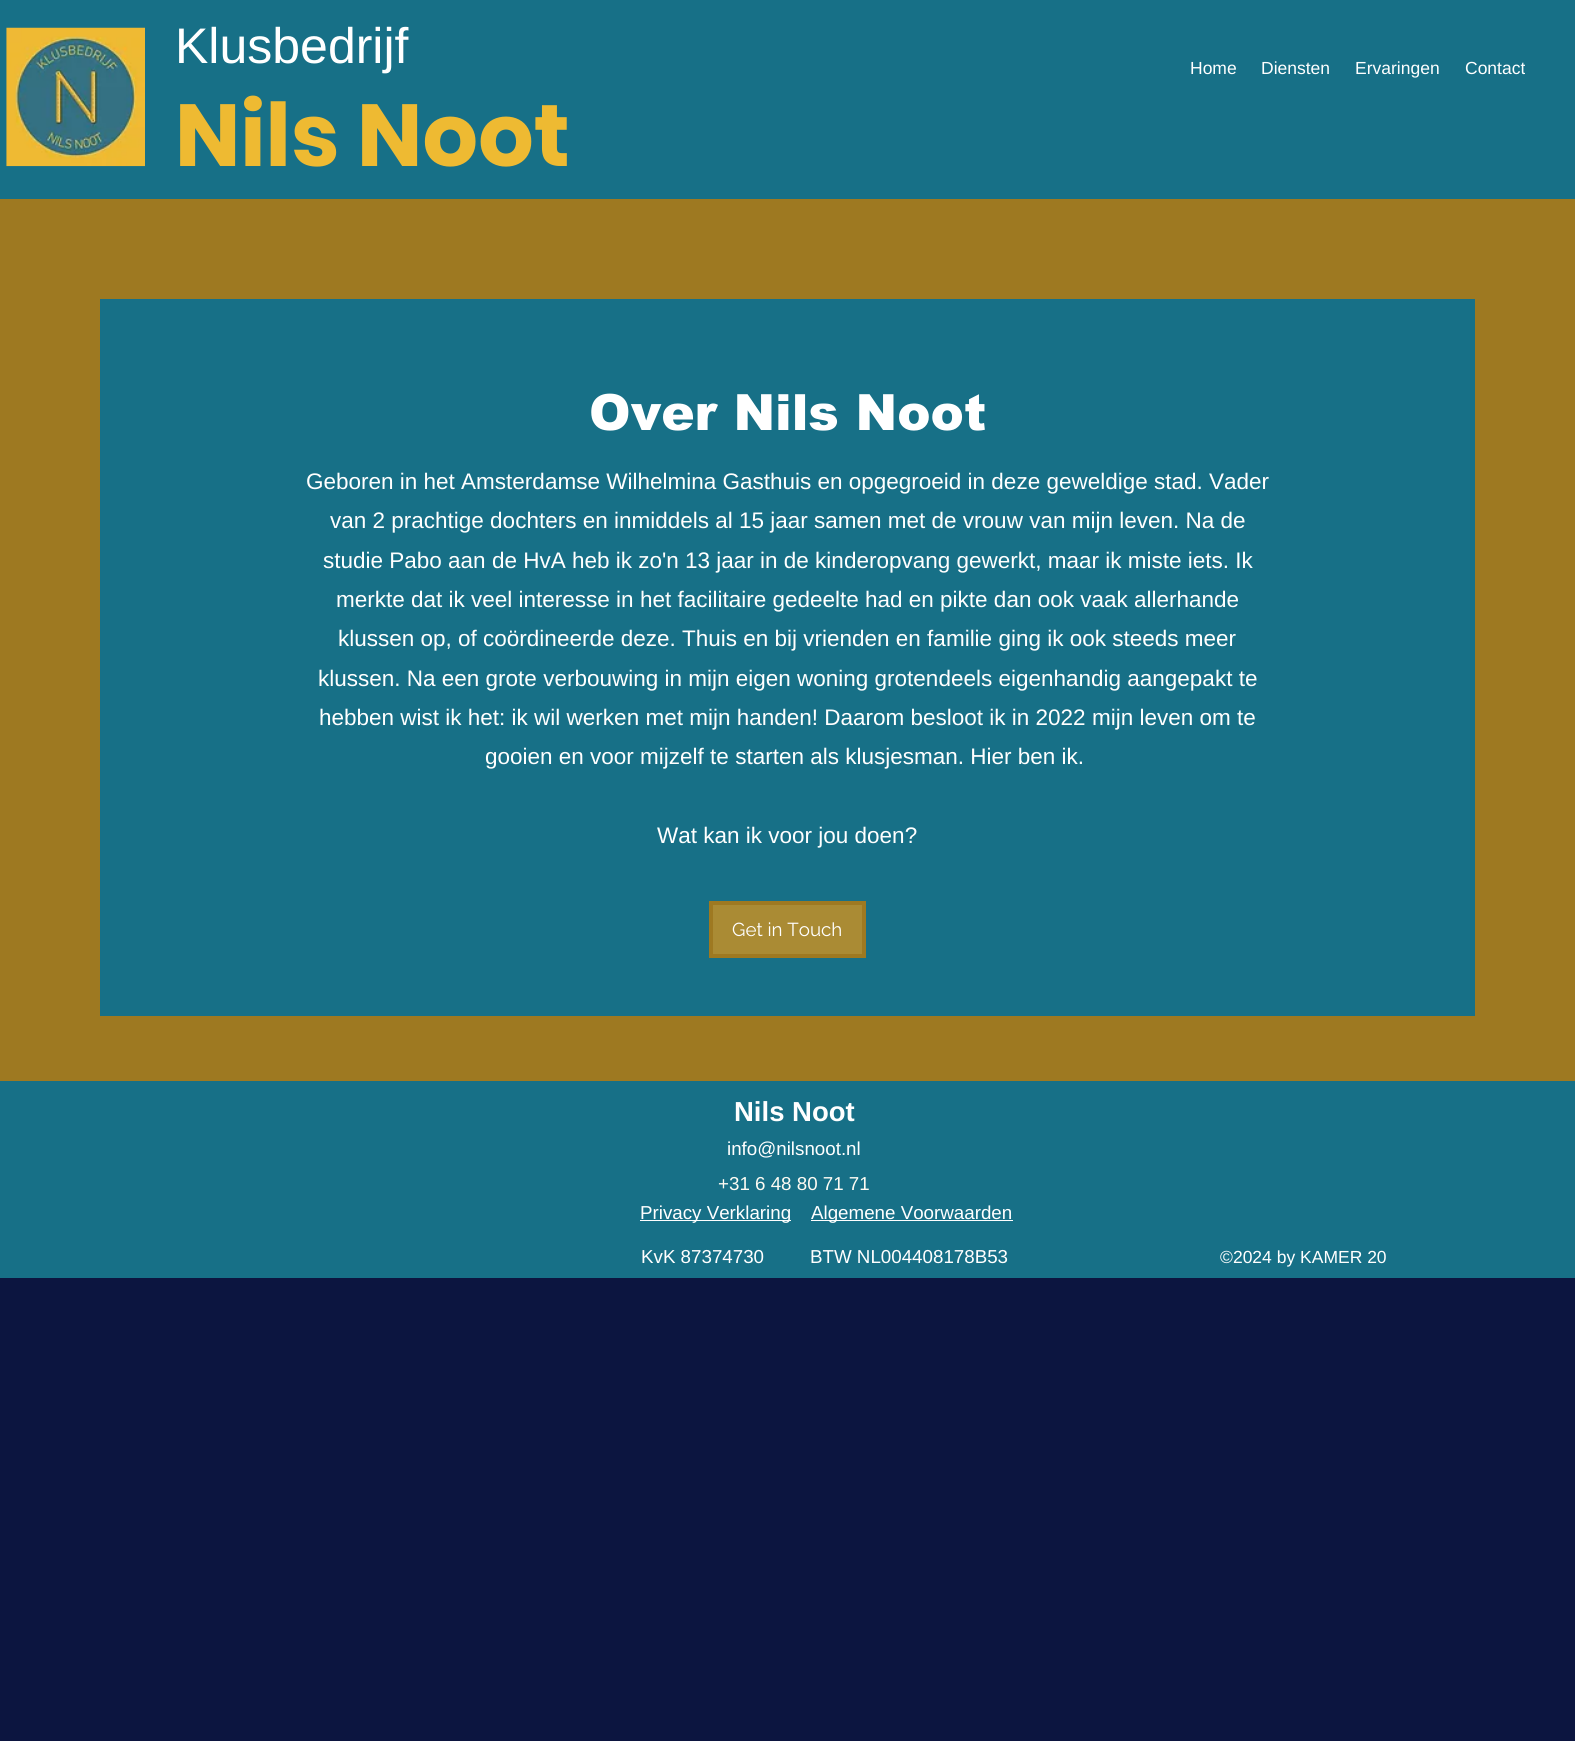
import math
import cairo


def use_color(cr, r, g, b):
  cr.set_source_rgb(r / 255, g / 255, b / 255)

def text(cr, x, y, s, family, size, color, bold=False, italic=False):
  cr.select_font_face(family, cairo.FONT_SLANT_ITALIC if italic else cairo.FONT_SLANT_NORMAL, cairo.FONT_WEIGHT_BOLD if bold else cairo.FONT_WEIGHT_NORMAL)
  cr.set_font_size(size)
  use_color(cr, *color)
  cr.move_to(x, y)
  cr.show_text(s)

def box(cr, x, y, w, h, *color):
  use_color(cr, *color)
  cr.rectangle(x, y, w, h)
  cr.fill()

def picture(cr, path, x, y, w, h):
  cr.save()
  cr.set_source_surface(cairo.ImageSurface.create_from_png(path), x, y)
  cr.rectangle(x, y, w, h)
  cr.fill()
  cr.restore()

def draw(cr):
  use_color(cr, 12, 21, 64)
  cr.paint()
  box(cr, 0, 0, 1575, 199, 23, 112, 135)
  picture(cr, "img_01.png", 6, 27, 139, 140)
  box(cr, 0, 199, 1575, 882, 158, 121, 33)
  box(cr, 100, 299, 1375, 717, 23, 112, 135)
  use_color(cr, 170, 139, 52)
  cr.rectangle(711, 903, 153, 53)
  cr.fill_preserve()
  use_color(cr, 158, 121, 33)
  cr.set_line_width(4)
  cr.stroke()
  box(cr, 0, 1081, 1575, 197, 23, 112, 135)
  box(cr, 640, 1220, 151, 1, 255, 255, 255)
  box(cr, 811, 1220, 202, 1, 255, 255, 255)
  text(cr, 175, 63, "Klusbedrijf", "Liberation Sans", 50, (255, 255, 255))
  text(cr, 1190, 74, "Home", "Liberation Sans", 17.5, (255, 255, 255))
  text(cr, 1261, 74, "Diensten", "Liberation Sans", 17.5, (255, 255, 255))
  text(cr, 1355, 74, "Ervaringen", "Liberation Sans", 17.5, (255, 255, 255))
  text(cr, 1465, 74, "Contact", "Liberation Sans", 17.5, (255, 255, 255))
  text(cr, 175, 166, "Nils Noot", "Poppins", 87.5, (238, 186, 50), bold=True)
  text(cr, 589, 430, "Over Nils Noot", "arial Black", 50, (255, 255, 255))
  text(cr, 306, 489, "Geboren in het Amsterdamse Wilhelmina Gasthuis en opgegroeid in deze geweldige stad. Vader", "Liberation Sans", 22.5, (255, 255, 255))
  text(cr, 330, 528, "van 2 prachtige dochters en inmiddels al 15 jaar samen met de vrouw van mijn leven. Na de", "Liberation Sans", 22.5, (255, 255, 255))
  text(cr, 323, 568, "studie Pabo aan de HvA heb ik zo'n 13 jaar in de kinderopvang gewerkt, maar ik miste iets. Ik", "Liberation Sans", 22.5, (255, 255, 255))
  text(cr, 336, 607, "merkte dat ik veel interesse in het facilitaire gedeelte had en pikte dan ook vaak allerhande", "Liberation Sans", 22.5, (255, 255, 255))
  text(cr, 338, 646, "klussen op, of coördineerde deze. Thuis en bij vrienden en familie ging ik ook steeds meer", "Liberation Sans", 22.5, (255, 255, 255))
  text(cr, 318, 686, "klussen. Na een grote verbouwing in mijn eigen woning grotendeels eigenhandig aangepakt te", "Liberation Sans", 22.5, (255, 255, 255))
  text(cr, 319, 725, "hebben wist ik het: ik wil werken met mijn handen! Daarom besloot ik in 2022 mijn leven om te", "Liberation Sans", 22.5, (255, 255, 255))
  text(cr, 485, 764, "gooien en voor mijzelf te starten als klusjesman. Hier ben ik.", "Liberation Sans", 22.5, (255, 255, 255))
  text(cr, 657, 843, "Wat kan ik voor jou doen?", "Liberation Sans", 22.5, (255, 255, 255))
  text(cr, 732, 936, "Get in Touch", "Raleway", 18.75, (255, 255, 255))
  text(cr, 734, 1121, "Nils Noot", "Liberation Sans", 27.5, (255, 255, 255), bold=True)
  text(cr, 727, 1155, "info@nilsnoot.nl", "Liberation Sans", 18.75, (255, 255, 255))
  text(cr, 718, 1190, "+31 6 48 80 71 71", "Liberation Sans", 18.75, (253, 251, 243))
  text(cr, 640, 1219, "Privacy Verklaring", "Liberation Sans", 18.75, (255, 255, 255))
  text(cr, 811, 1219, "Algemene Voorwaarden", "Liberation Sans", 18.75, (255, 255, 255))
  text(cr, 641, 1263, "KvK 87374730", "Liberation Sans", 18.75, (255, 255, 255))
  text(cr, 810, 1263, "BTW NL004408178B53", "Liberation Sans", 18.75, (255, 255, 255))
  text(cr, 1220, 1263, "©2024 by KAMER 20", "Liberation Sans", 17.5, (255, 255, 255))


surface = cairo.ImageSurface(cairo.FORMAT_RGB24, 1575, 1741)
cr = cairo.Context(surface)
options = cairo.FontOptions()
options.set_hint_metrics(cairo.HINT_METRICS_OFF)
options.set_hint_style(cairo.HINT_STYLE_NONE)
cr.set_font_options(options)
cr.set_miter_limit(4)
draw(cr)
surface.write_to_png("out.png")
